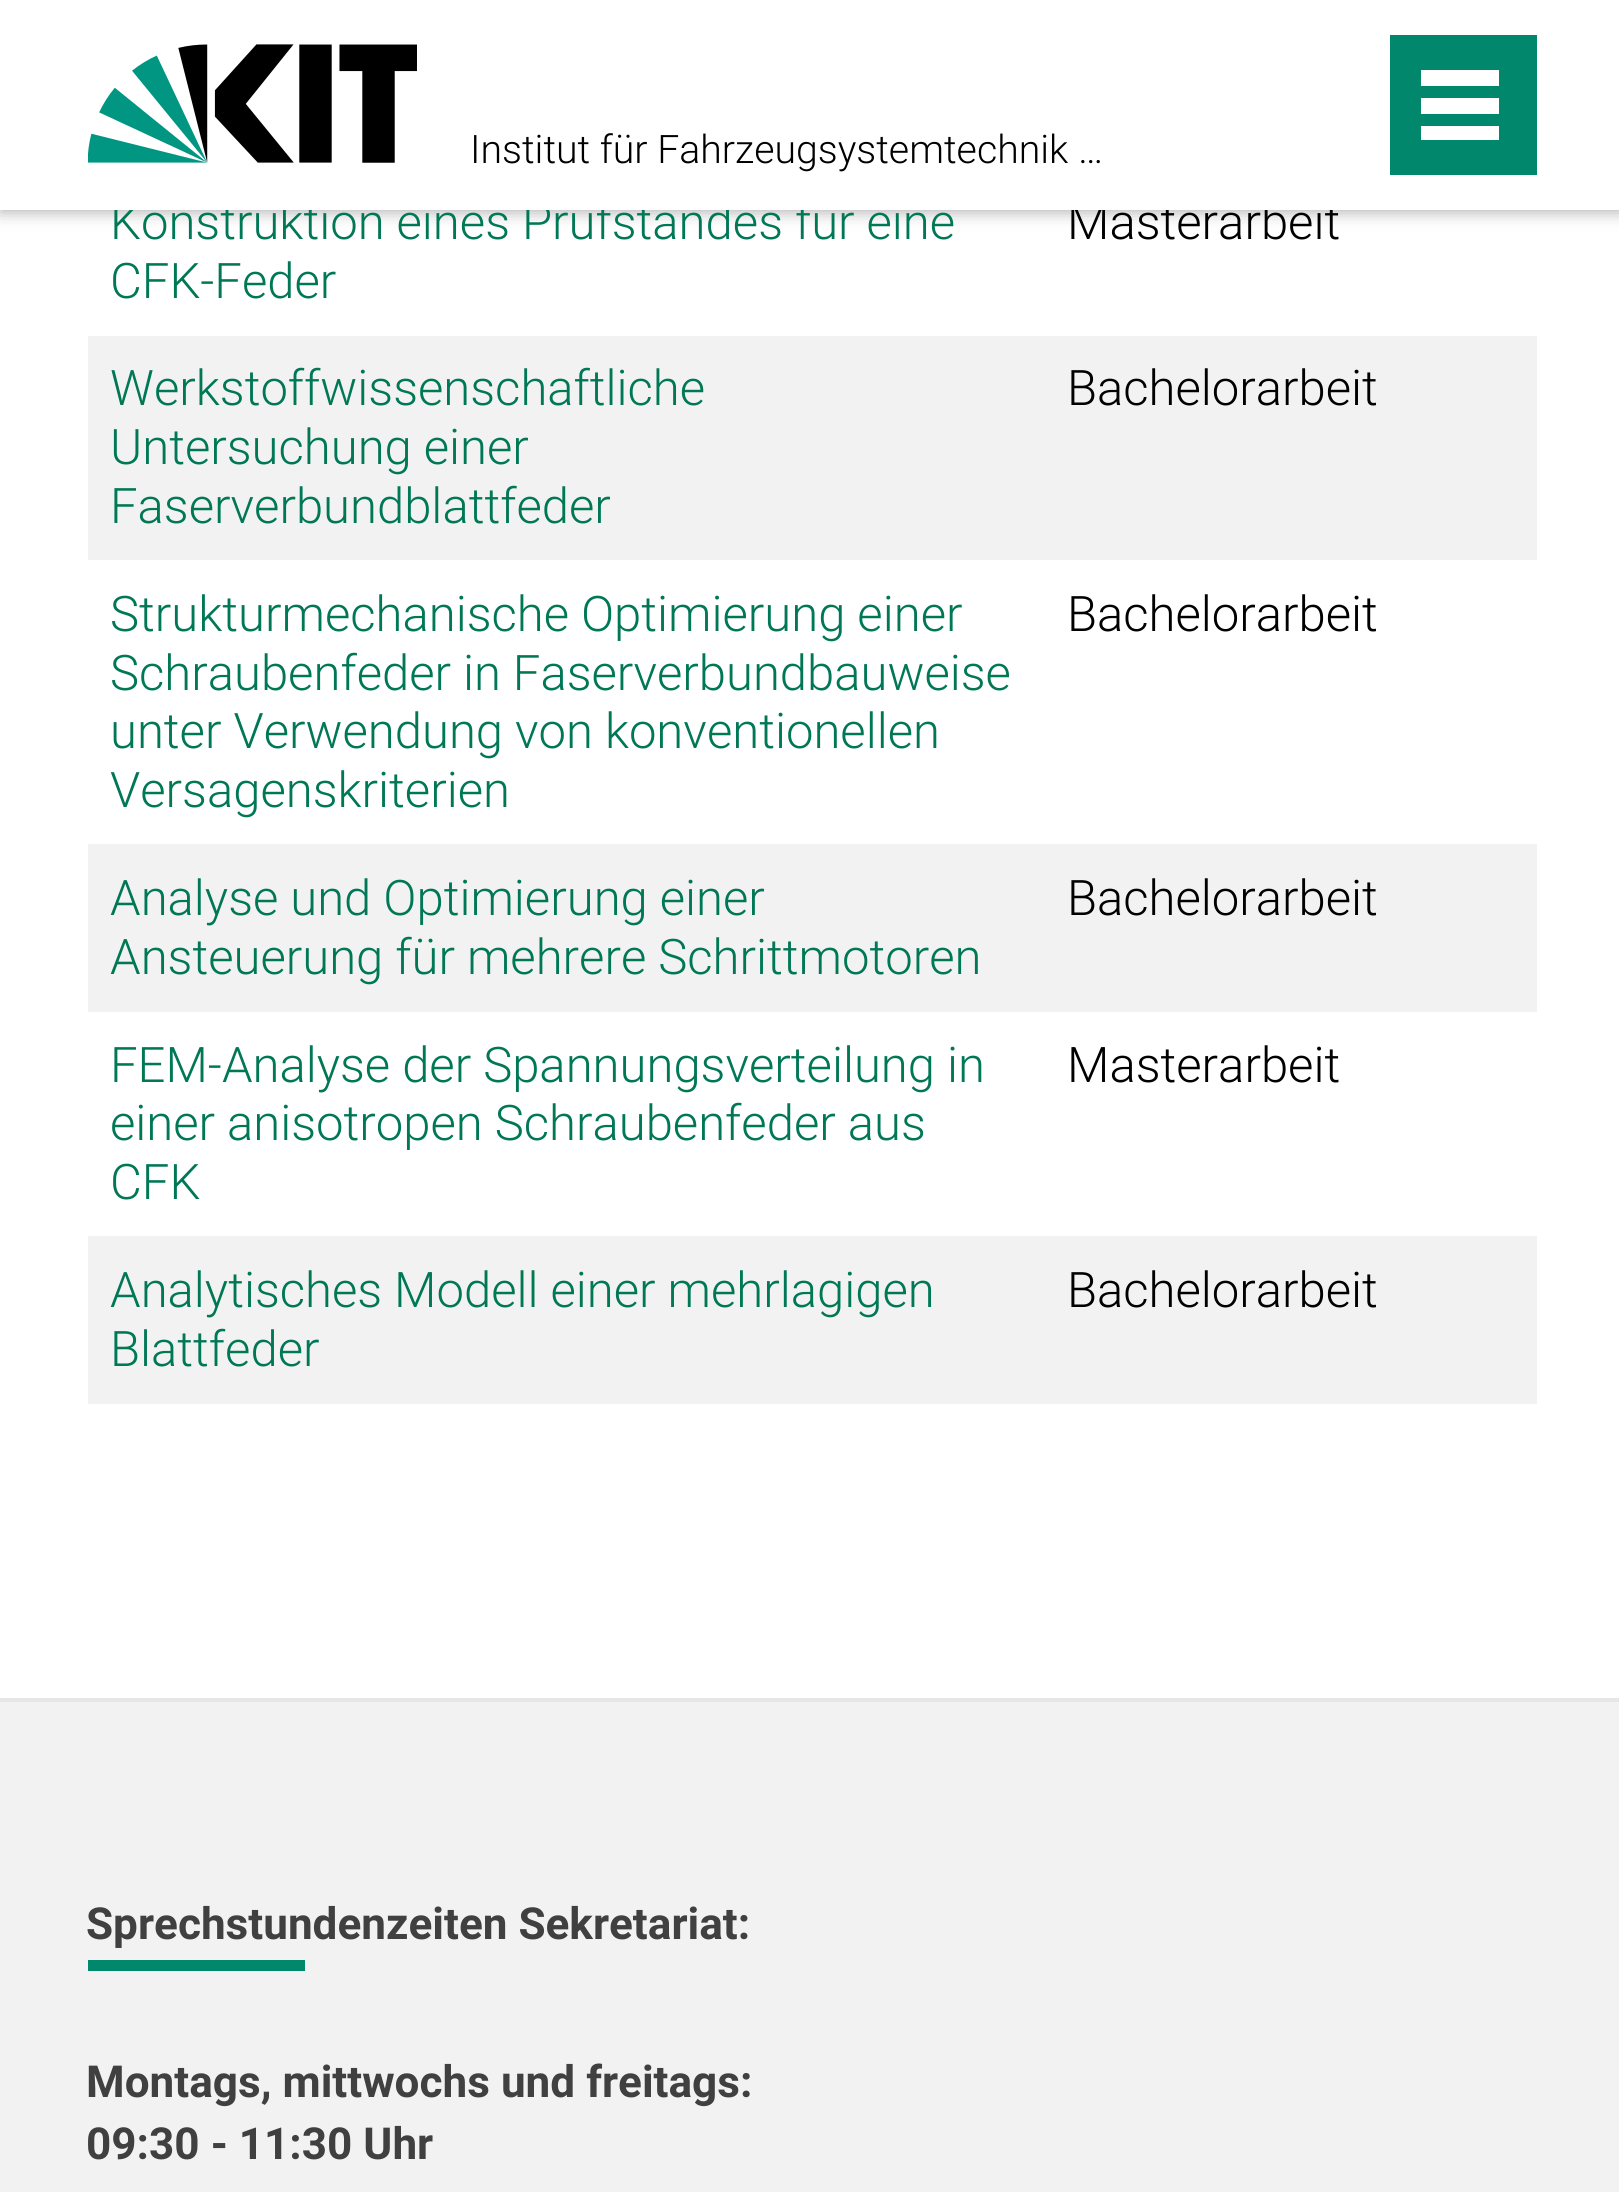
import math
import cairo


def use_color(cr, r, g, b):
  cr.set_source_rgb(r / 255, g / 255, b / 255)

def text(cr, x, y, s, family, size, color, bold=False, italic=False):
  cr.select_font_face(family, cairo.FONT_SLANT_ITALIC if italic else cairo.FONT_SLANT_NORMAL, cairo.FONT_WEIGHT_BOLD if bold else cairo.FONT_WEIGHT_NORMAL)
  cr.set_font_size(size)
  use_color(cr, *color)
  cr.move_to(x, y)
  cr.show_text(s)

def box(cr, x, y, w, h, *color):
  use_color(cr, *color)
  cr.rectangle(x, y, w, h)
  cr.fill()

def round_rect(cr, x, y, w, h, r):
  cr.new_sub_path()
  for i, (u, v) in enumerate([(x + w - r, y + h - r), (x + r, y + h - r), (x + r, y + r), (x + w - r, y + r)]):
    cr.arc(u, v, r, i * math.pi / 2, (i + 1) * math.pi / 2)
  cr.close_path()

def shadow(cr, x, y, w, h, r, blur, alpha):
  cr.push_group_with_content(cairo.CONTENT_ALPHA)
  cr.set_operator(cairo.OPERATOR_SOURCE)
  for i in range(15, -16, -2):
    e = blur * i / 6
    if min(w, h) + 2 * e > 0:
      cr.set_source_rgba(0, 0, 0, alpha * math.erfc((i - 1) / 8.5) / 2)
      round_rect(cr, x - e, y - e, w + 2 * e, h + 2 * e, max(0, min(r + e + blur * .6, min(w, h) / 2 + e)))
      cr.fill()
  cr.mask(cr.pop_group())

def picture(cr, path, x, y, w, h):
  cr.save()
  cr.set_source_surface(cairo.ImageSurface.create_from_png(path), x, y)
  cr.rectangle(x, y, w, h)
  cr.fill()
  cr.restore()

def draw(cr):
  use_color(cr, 255, 255, 255)
  cr.paint()
  use_color(cr, 64, 64, 64)
  shadow(cr, 0, 0, 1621, 210, 0, 9, 0.5)
  box(cr, 88, 336, 1449, 224, 242, 242, 242)
  box(cr, 88, 844, 1449, 168, 242, 242, 242)
  box(cr, 88, 1236, 1449, 168, 242, 242, 242)
  box(cr, 0, 1702, 1619, 490, 242, 242, 242)
  box(cr, 0, 1698, 1619, 4, 230, 230, 230)
  box(cr, 88, 1960, 217, 11, 0, 135, 108)
  text(cr, 110, 239, "Konstruktion eines Prüfstandes für eine", "Roboto Light", 49, (0, 119, 85))
  text(cr, 110, 298, "CFK-Feder", "Roboto Light", 49, (0, 119, 85))
  text(cr, 1067, 239, "Masterarbeit", "Roboto Light", 49, (0, 0, 0))
  box(cr, 0, 0, 1619, 210, 255, 255, 255)
  text(cr, 470, 163, "Institut für Fahrzeugsystemtechnik …", "Roboto Light", 39.25, (0, 0, 0))
  picture(cr, "img_01.png", 88, 44, 329, 119)
  box(cr, 1390, 35, 147, 140, 0, 135, 108)
  box(cr, 1421, 70, 78, 16, 255, 255, 255)
  box(cr, 1421, 98, 78, 16, 255, 255, 255)
  box(cr, 1421, 126, 78, 14, 255, 255, 255)
  text(cr, 110, 405, "Werkstoffwissenschaftliche", "Roboto Light", 49, (0, 119, 85))
  text(cr, 110, 464, "Untersuchung einer", "Roboto Light", 49, (0, 119, 85))
  text(cr, 110, 523, "Faserverbundblattfeder", "Roboto Light", 49, (0, 119, 85))
  text(cr, 1067, 405, "Bachelorarbeit", "Roboto Light", 49, (0, 0, 0))
  text(cr, 110, 631, "Strukturmechanische Optimierung einer", "Roboto Light", 49, (0, 119, 85))
  text(cr, 110, 690, "Schraubenfeder in Faserverbundbauweise", "Roboto Light", 49, (0, 119, 85))
  text(cr, 110, 748, "unter Verwendung von konventionellen", "Roboto Light", 49, (0, 119, 85))
  text(cr, 110, 807, "Versagenskriterien", "Roboto Light", 49, (0, 119, 85))
  text(cr, 1067, 631, "Bachelorarbeit", "Roboto Light", 49, (0, 0, 0))
  text(cr, 110, 915, "Analyse und Optimierung einer", "Roboto Light", 49, (0, 119, 85))
  text(cr, 110, 974, "Ansteuerung für mehrere Schrittmotoren", "Roboto Light", 49, (0, 119, 85))
  text(cr, 1067, 915, "Bachelorarbeit", "Roboto Light", 49, (0, 0, 0))
  text(cr, 110, 1082, "FEM-Analyse der Spannungsverteilung in", "Roboto Light", 49, (0, 119, 85))
  text(cr, 110, 1140, "einer anisotropen Schraubenfeder aus", "Roboto Light", 49, (0, 119, 85))
  text(cr, 110, 1199, "CFK", "Roboto Light", 49, (0, 119, 85))
  text(cr, 1067, 1082, "Masterarbeit", "Roboto Light", 49, (0, 0, 0))
  text(cr, 110, 1307, "Analytisches Modell einer mehrlagigen", "Roboto Light", 49, (0, 119, 85))
  text(cr, 110, 1366, "Blattfeder", "Roboto Light", 49, (0, 119, 85))
  text(cr, 1067, 1307, "Bachelorarbeit", "Roboto Light", 49, (0, 0, 0))
  text(cr, 86, 1939, "Sprechstundenzeiten Sekretariat:", "Roboto", 44.1, (64, 64, 64), bold=True)
  text(cr, 86, 2097, "Montags, mittwochs und freitags:", "Roboto", 44.1, (64, 64, 64), bold=True)
  text(cr, 86, 2159, "09:30 - 11:30 Uhr", "Roboto", 44.1, (64, 64, 64), bold=True)


surface = cairo.ImageSurface(cairo.FORMAT_RGB24, 1619, 2192)
cr = cairo.Context(surface)
options = cairo.FontOptions()
options.set_hint_metrics(cairo.HINT_METRICS_OFF)
options.set_hint_style(cairo.HINT_STYLE_NONE)
cr.set_font_options(options)
cr.set_miter_limit(4)
draw(cr)
surface.write_to_png("out.png")
